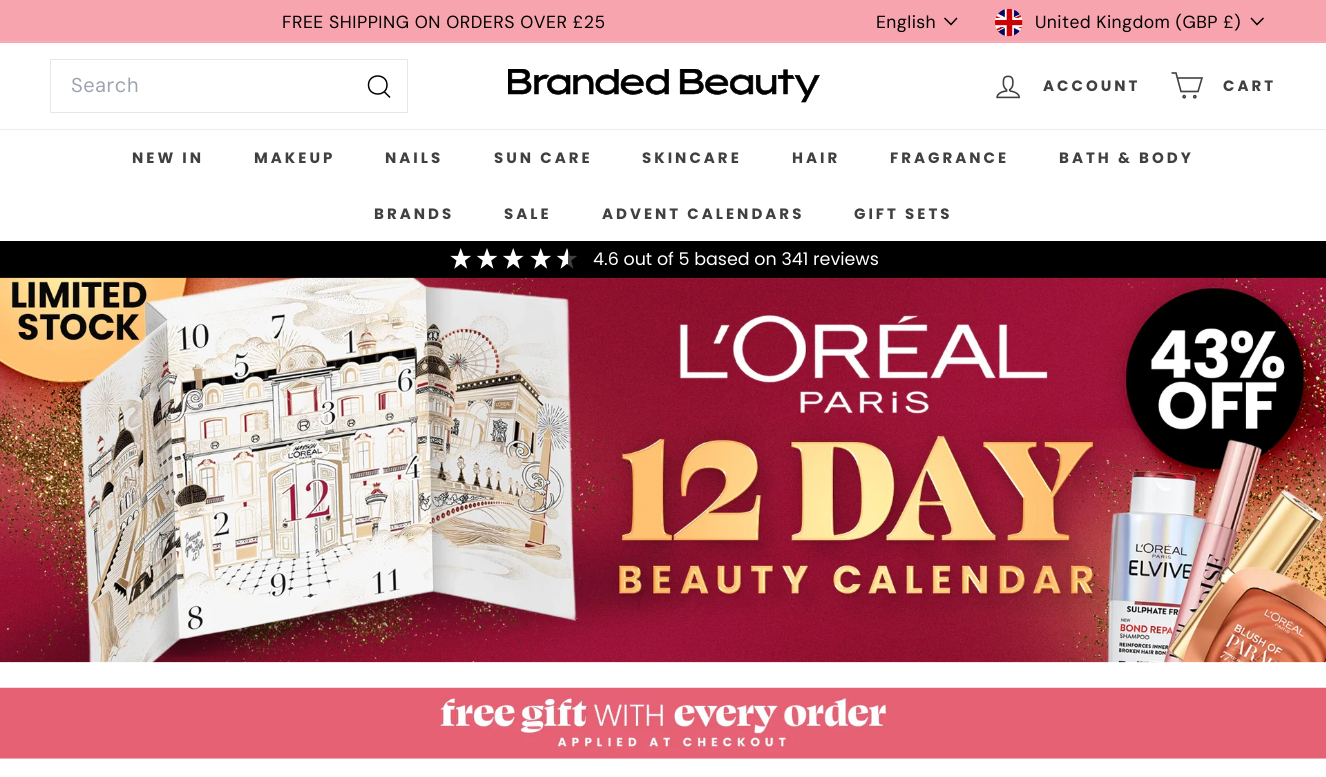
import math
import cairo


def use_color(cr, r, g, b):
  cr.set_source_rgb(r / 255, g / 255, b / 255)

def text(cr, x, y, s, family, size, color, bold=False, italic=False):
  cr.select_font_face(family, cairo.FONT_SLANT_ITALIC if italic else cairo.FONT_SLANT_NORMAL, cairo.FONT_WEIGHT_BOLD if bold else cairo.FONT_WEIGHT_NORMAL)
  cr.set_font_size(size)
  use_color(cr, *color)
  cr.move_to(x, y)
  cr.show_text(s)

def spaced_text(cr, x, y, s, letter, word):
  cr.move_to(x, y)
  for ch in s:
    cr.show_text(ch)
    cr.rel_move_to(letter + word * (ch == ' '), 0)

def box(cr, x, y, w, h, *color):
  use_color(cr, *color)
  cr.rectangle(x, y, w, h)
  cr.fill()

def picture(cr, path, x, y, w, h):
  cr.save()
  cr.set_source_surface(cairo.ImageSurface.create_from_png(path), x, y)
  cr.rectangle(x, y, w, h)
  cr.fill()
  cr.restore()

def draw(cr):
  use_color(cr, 255, 255, 255)
  cr.paint()
  box(cr, 0, 0, 1326, 43, 247, 164, 175)
  cr.new_path()
  cr.move_to(944.5, 18)
  cr.line_to(951, 24.5)
  cr.line_to(957, 18)
  use_color(cr, 0, 0, 0)
  cr.set_line_width(1.5)
  cr.stroke()
  picture(cr, "img_01.png", 995, 8, 28, 29)
  cr.new_path()
  cr.move_to(1251, 18)
  cr.line_to(1257, 24.5)
  cr.line_to(1263.5, 18)
  cr.stroke()
  box(cr, 0, 41, 1326, 1, 248, 178, 187)
  cr.rectangle(50.5, 59.5, 357, 53)
  use_color(cr, 232, 232, 225)
  cr.set_line_width(1)
  cr.stroke()
  cr.new_path()
  cr.move_to(387, 85)
  cr.curve_to(387, 97, 368.5, 97, 368.5, 85)
  cr.curve_to(368.5, 73, 387, 73, 387, 85)
  cr.move_to(390, 97.5)
  cr.line_to(384, 91.5)
  use_color(cr, 0, 0, 0)
  cr.set_line_width(1.5)
  cr.stroke()
  picture(cr, "img_02.png", 508, 69, 312, 34)
  picture(cr, "img_03.png", 996, 75, 24, 24)
  cr.new_path()
  cr.move_to(1177.5, 78)
  cr.line_to(1202, 78)
  cr.line_to(1198, 91.5)
  cr.line_to(1181, 91.5)
  cr.line_to(1176, 73)
  cr.line_to(1171.5, 73)
  use_color(cr, 64, 64, 64)
  cr.set_line_width(1.6)
  cr.stroke()
  cr.arc(1184.2, 96.7, 1.1, 0, 2 * math.pi)
  cr.stroke()
  cr.arc(1194.8, 96.7, 1.1, 0, 2 * math.pi)
  cr.stroke()
  box(cr, 0, 129, 1326, 1, 236, 236, 236)
  box(cr, 0, 241, 1326, 37, 0, 0, 0)
  picture(cr, "img_04.png", 450, 248, 21, 21)
  picture(cr, "img_05.png", 476, 248, 22, 21)
  picture(cr, "img_06.png", 503, 248, 21, 21)
  picture(cr, "img_04.png", 530, 248, 21, 21)
  picture(cr, "img_07.png", 556, 248, 21, 21)
  picture(cr, "img_08.png", 0, 277, 1326, 386)
  picture(cr, "img_09.png", 0, 687, 1326, 72)
  cr.select_font_face("DM Sans")
  cr.set_font_size(17.5)
  spaced_text(cr, 282, 28, "FREE SHIPPING ON ORDERS OVER £25", 0.5, 0)
  spaced_text(cr, 876, 28, "English", 0.4, 0)
  spaced_text(cr, 1035, 28, "United Kingdom (GBP", 0.4, 0)
  spaced_text(cr, 1223, 28, "£)", 0.4, 0)
  cr.set_font_size(20)
  use_color(cr, 156, 163, 175)
  spaced_text(cr, 71, 92, "Search", 0.5, 0)
  cr.select_font_face("Poppins", cairo.FONT_SLANT_NORMAL, cairo.FONT_WEIGHT_BOLD)
  cr.set_font_size(15)
  use_color(cr, 64, 64, 64)
  spaced_text(cr, 1043, 91, "ACCOUNT", 3, 0)
  spaced_text(cr, 1223, 91, "CART", 3, 0)
  spaced_text(cr, 132, 163, "NEW IN", 3, 0)
  spaced_text(cr, 254, 163, "MAKEUP", 3, 0)
  spaced_text(cr, 385, 163, "NAILS", 3, 0)
  spaced_text(cr, 494, 163, "SUN CARE", 3, 0)
  spaced_text(cr, 642, 163, "SKINCARE", 3, 0)
  spaced_text(cr, 792, 163, "HAIR", 3, 0)
  spaced_text(cr, 890, 163, "FRAGRANCE", 3, 0)
  spaced_text(cr, 1059, 163, "BATH & BODY", 3, 0)
  spaced_text(cr, 374, 219, "BRANDS", 3, 0)
  spaced_text(cr, 504, 219, "SALE", 3, 0)
  spaced_text(cr, 602, 219, "ADVENT CALENDARS", 3, 0)
  spaced_text(cr, 854, 219, "GIFT SETS", 3, 0)
  text(cr, 593, 265, "4.6 out of 5 based on 341 reviews", "Poppins", 17.5, (255, 255, 255))


surface = cairo.ImageSurface(cairo.FORMAT_RGB24, 1326, 777)
cr = cairo.Context(surface)
options = cairo.FontOptions()
options.set_hint_metrics(cairo.HINT_METRICS_OFF)
options.set_hint_style(cairo.HINT_STYLE_NONE)
cr.set_font_options(options)
cr.set_miter_limit(4)
draw(cr)
surface.write_to_png("out.png")
